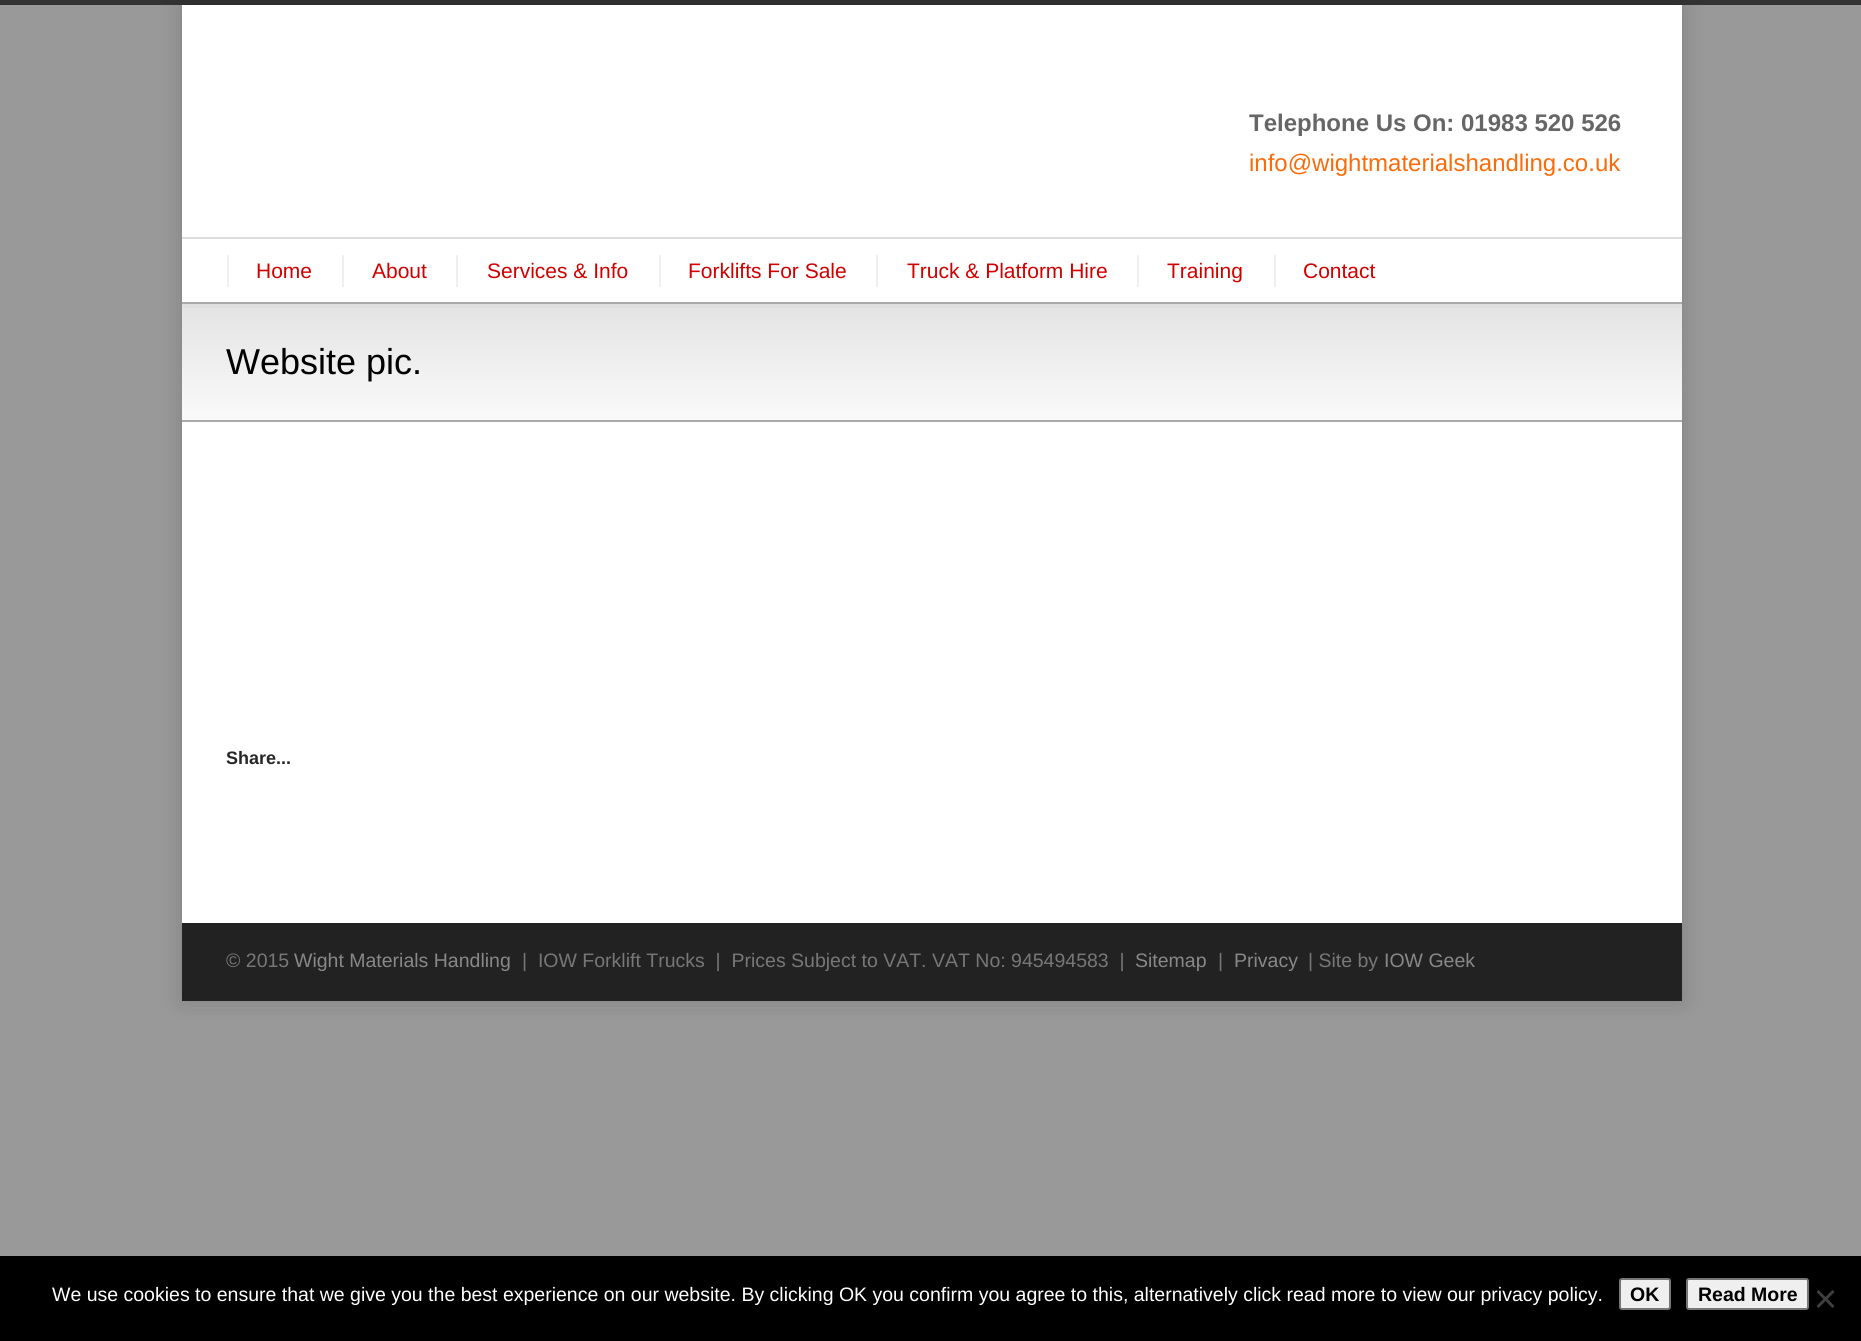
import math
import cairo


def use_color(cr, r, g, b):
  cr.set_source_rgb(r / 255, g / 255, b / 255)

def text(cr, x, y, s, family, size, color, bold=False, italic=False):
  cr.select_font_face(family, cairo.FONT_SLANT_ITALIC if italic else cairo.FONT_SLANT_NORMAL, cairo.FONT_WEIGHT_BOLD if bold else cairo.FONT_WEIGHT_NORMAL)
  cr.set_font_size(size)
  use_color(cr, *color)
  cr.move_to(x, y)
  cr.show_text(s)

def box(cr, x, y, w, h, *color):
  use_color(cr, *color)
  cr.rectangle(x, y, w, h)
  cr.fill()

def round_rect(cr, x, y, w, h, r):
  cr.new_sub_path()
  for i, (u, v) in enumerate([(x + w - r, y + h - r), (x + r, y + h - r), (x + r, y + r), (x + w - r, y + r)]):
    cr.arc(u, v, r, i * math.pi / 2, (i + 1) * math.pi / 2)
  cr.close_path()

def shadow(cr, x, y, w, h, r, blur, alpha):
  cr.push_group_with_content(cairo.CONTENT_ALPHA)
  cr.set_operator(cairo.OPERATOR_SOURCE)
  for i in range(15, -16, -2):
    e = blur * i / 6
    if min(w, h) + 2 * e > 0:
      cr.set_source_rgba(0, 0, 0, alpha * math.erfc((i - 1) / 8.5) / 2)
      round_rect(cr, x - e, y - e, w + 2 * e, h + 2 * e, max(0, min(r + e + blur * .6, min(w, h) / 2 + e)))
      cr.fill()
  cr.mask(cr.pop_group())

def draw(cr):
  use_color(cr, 153, 153, 153)
  cr.paint()
  box(cr, 0, 0, 1861, 5, 51, 51, 51)
  use_color(cr, 0, 0, 0)
  shadow(cr, 182, 5, 1500, 996, 0, 12, 0.16)
  box(cr, 182, 5, 1500, 918, 255, 255, 255)
  box(cr, 182, 237, 1500, 2, 221, 221, 221)
  box(cr, 227, 255, 2, 32, 239, 239, 239)
  box(cr, 342, 255, 2, 32, 239, 239, 239)
  box(cr, 456, 255, 2, 32, 239, 239, 239)
  box(cr, 659, 255, 2, 32, 239, 239, 239)
  box(cr, 876, 255, 2, 32, 239, 239, 239)
  box(cr, 1137, 255, 2, 32, 239, 239, 239)
  box(cr, 1274, 255, 2, 32, 239, 239, 239)
  gradient = cairo.LinearGradient(932, 420, 932, 303)
  gradient.add_color_stop_rgba(0, 0.98, 0.98, 0.98, 1)
  gradient.add_color_stop_rgba(1, 0.89, 0.89, 0.89, 1)
  cr.set_source(gradient)
  cr.rectangle(182, 308, 1500, 112)
  cr.fill()
  box(cr, 182, 304, 1500, 4, 223, 223, 223)
  box(cr, 182, 302, 1500, 2, 170, 170, 170)
  box(cr, 182, 420, 1500, 2, 170, 170, 170)
  box(cr, 182, 923, 1500, 78, 34, 34, 34)
  box(cr, 0, 1256, 1861, 85, 0, 0, 0)
  use_color(cr, 239, 239, 239)
  round_rect(cr, 1620, 1279, 50, 30, 2)
  cr.fill_preserve()
  use_color(cr, 118, 118, 118)
  cr.stroke()
  use_color(cr, 239, 239, 239)
  round_rect(cr, 1687, 1279, 121, 30, 2)
  cr.fill_preserve()
  use_color(cr, 118, 118, 118)
  cr.stroke()
  use_color(cr, 64, 64, 64)
  cr.new_path()
  cr.move_to(1832.5, 1290)
  cr.line_to(1834.5, 1292)
  cr.line_to(1818.5, 1308)
  cr.line_to(1816.5, 1306)
  cr.close_path()
  cr.fill()
  cr.new_path()
  cr.move_to(1816.5, 1292)
  cr.line_to(1818.5, 1290)
  cr.line_to(1834.5, 1306)
  cr.line_to(1832.5, 1308)
  cr.close_path()
  cr.fill()
  text(cr, 1249, 131, "Telephone Us On: 01983 520 526", "Liberation Sans", 24, (102, 102, 102), bold=True)
  text(cr, 1249, 171, "info@wightmaterialshandling.co.uk", "Liberation Sans", 24, (252, 107, 10))
  text(cr, 256, 278, "Home", "Liberation Sans", 21, (209, 0, 0))
  text(cr, 372, 278, "About", "Liberation Sans", 21, (209, 0, 0))
  text(cr, 487, 278, "Services & Info", "Liberation Sans", 21, (209, 0, 0))
  text(cr, 688, 278, "Forklifts For Sale", "Liberation Sans", 21, (209, 0, 0))
  text(cr, 907, 278, "Truck & Platform Hire", "Liberation Sans", 21, (209, 0, 0))
  text(cr, 1167, 278, "Training", "Liberation Sans", 21, (209, 0, 0))
  text(cr, 1303, 278, "Contact", "Liberation Sans", 21, (209, 0, 0))
  text(cr, 226, 374, "Website pic.", "Liberation Sans", 36, (0, 0, 0))
  text(cr, 226, 764, "Share...", "Liberation Sans", 18, (39, 39, 39), bold=True)
  text(cr, 226, 967, "© 2015", "Liberation Sans", 19.5, (119, 119, 119))
  text(cr, 294, 967, "Wight Materials Handling", "Liberation Sans", 19.5, (136, 136, 136))
  text(cr, 522, 967, "|  IOW Forklift Trucks  |  Prices Subject to VAT. VAT No: 945494583  |", "Liberation Sans", 19.5, (119, 119, 119))
  text(cr, 1135, 967, "Sitemap", "Liberation Sans", 19.5, (136, 136, 136))
  text(cr, 1218, 967, "|", "Liberation Sans", 19.5, (119, 119, 119))
  text(cr, 1234, 967, "Privacy", "Liberation Sans", 19.5, (136, 136, 136))
  text(cr, 1308, 967, "| Site by", "Liberation Sans", 19.5, (119, 119, 119))
  text(cr, 1384, 967, "IOW Geek", "Liberation Sans", 19.5, (136, 136, 136))
  text(cr, 52, 1301, "We use cookies to ensure that we give you the best experience on our website. By clicking OK you confirm you agree to this, alternatively click read more to view our privacy policy.", "Liberation Sans", 19.5, (255, 255, 255))
  text(cr, 1630, 1301, "OK", "Liberation Sans", 19.5, (0, 0, 0), bold=True)
  text(cr, 1698, 1301, "Read More", "Liberation Sans", 19.5, (0, 0, 0), bold=True)


surface = cairo.ImageSurface(cairo.FORMAT_RGB24, 1861, 1341)
cr = cairo.Context(surface)
options = cairo.FontOptions()
options.set_hint_metrics(cairo.HINT_METRICS_OFF)
options.set_hint_style(cairo.HINT_STYLE_NONE)
cr.set_font_options(options)
cr.set_miter_limit(4)
draw(cr)
surface.write_to_png("out.png")
